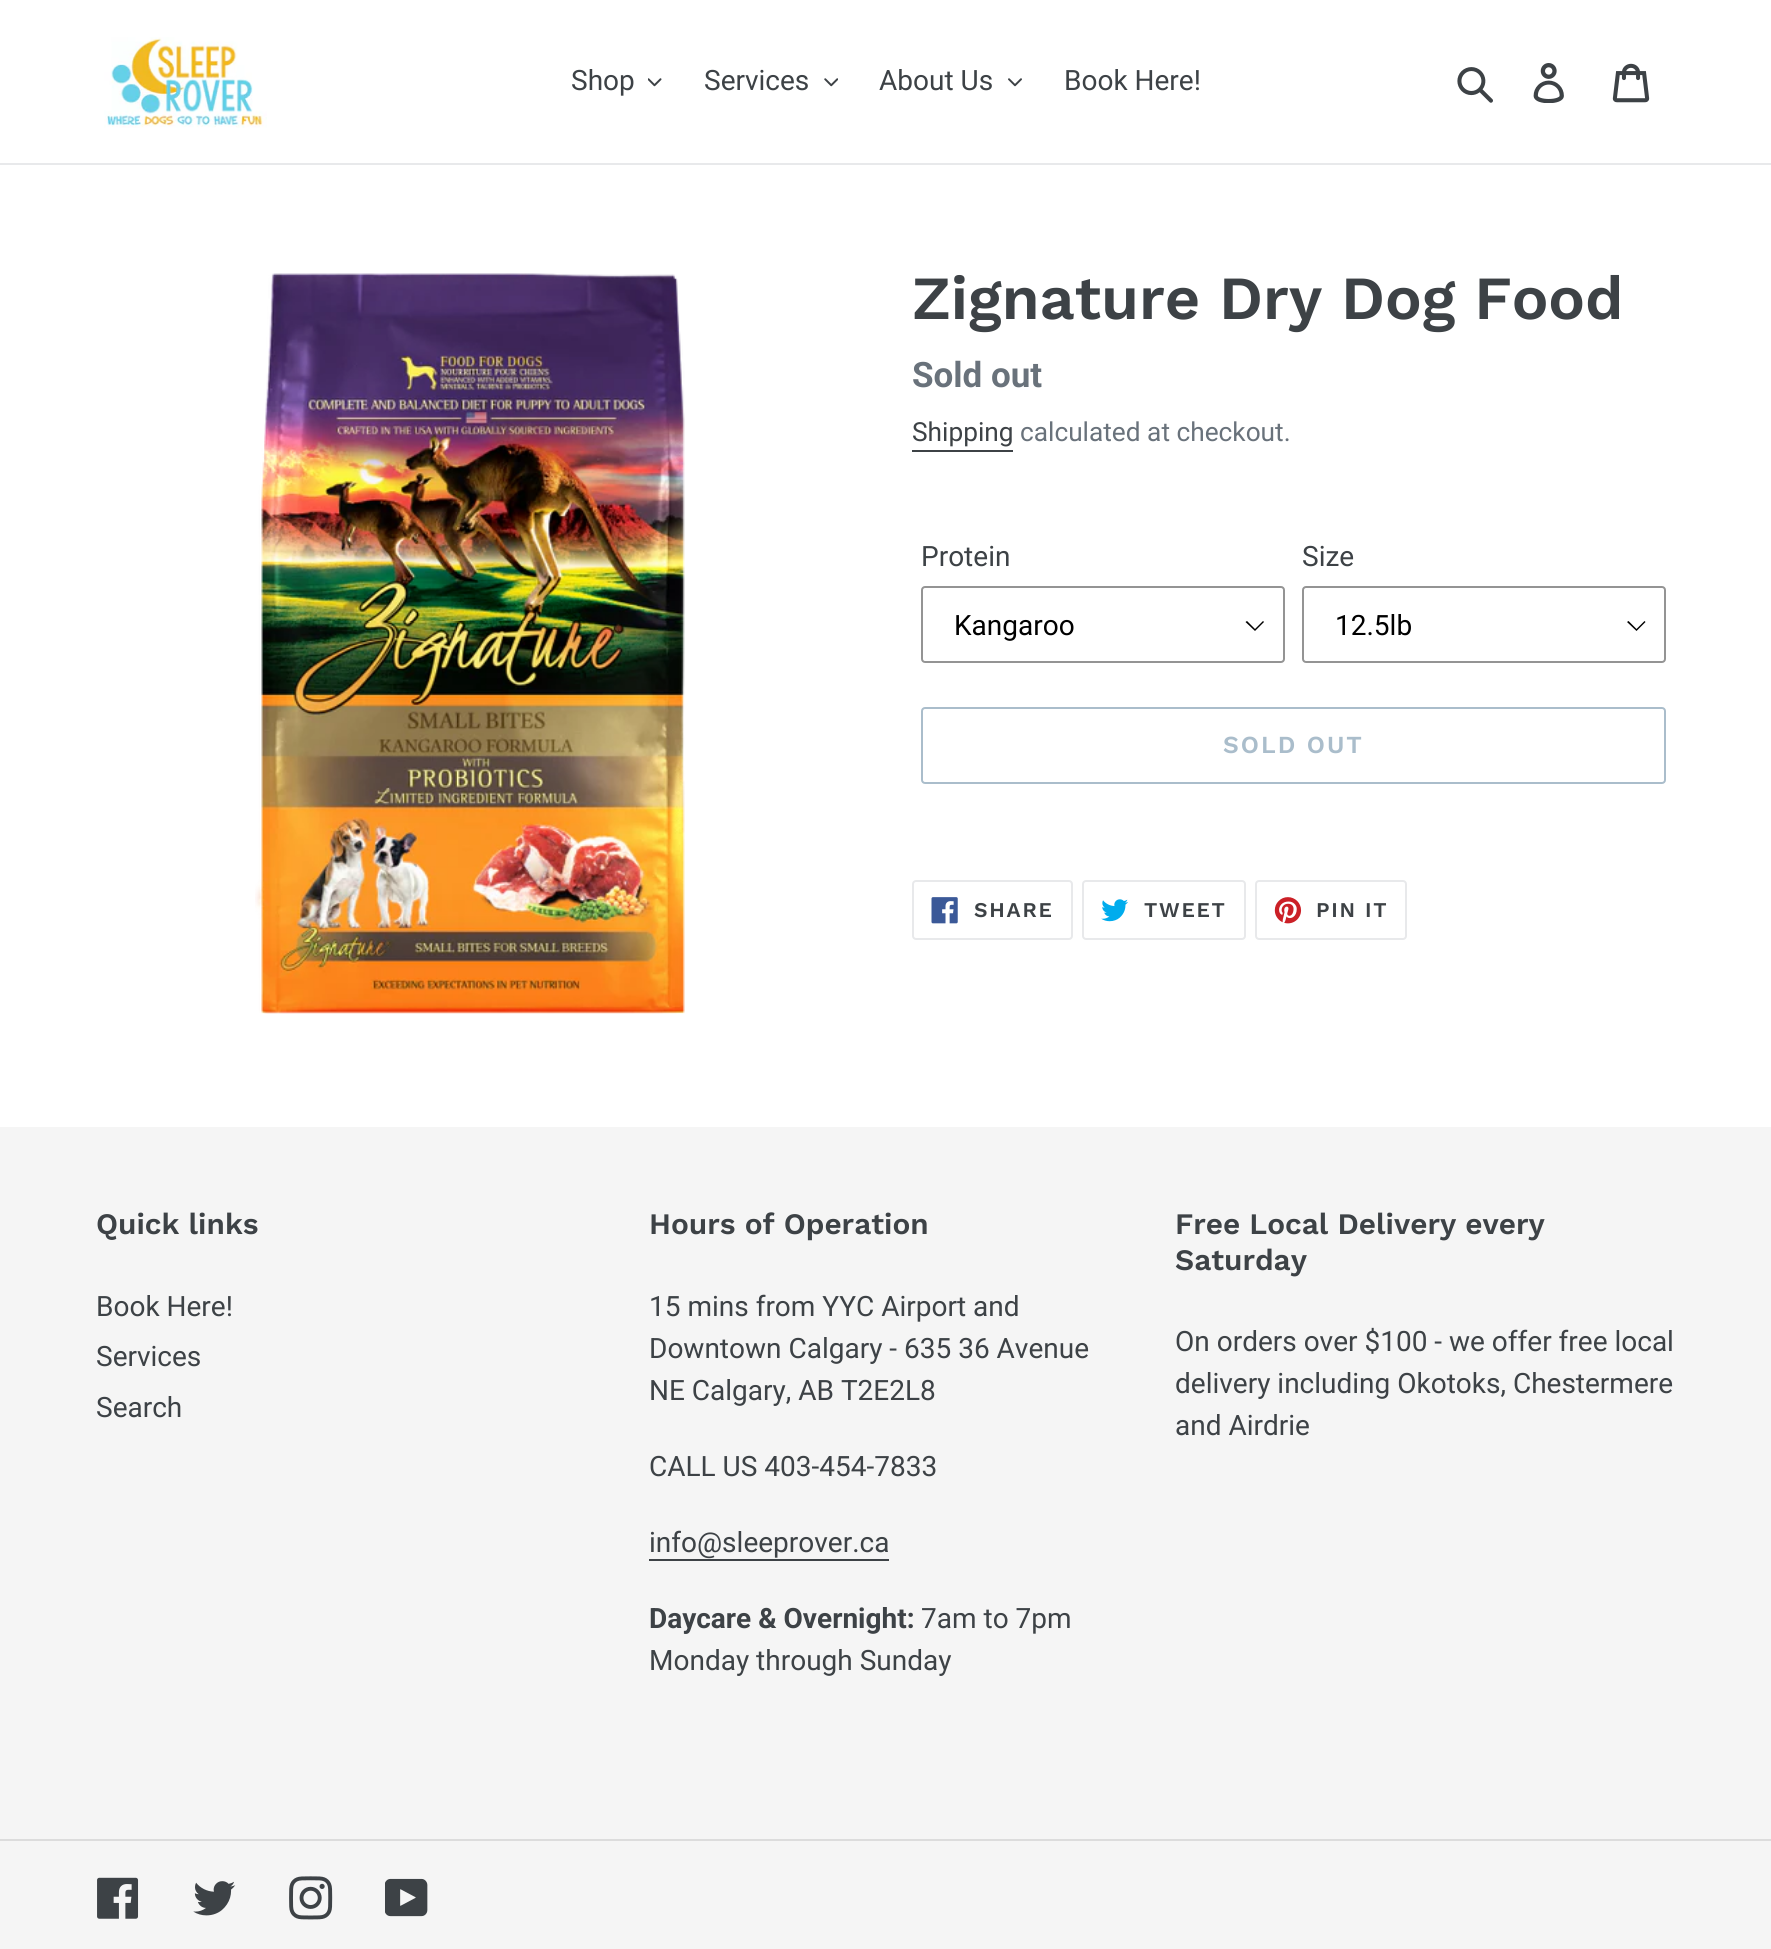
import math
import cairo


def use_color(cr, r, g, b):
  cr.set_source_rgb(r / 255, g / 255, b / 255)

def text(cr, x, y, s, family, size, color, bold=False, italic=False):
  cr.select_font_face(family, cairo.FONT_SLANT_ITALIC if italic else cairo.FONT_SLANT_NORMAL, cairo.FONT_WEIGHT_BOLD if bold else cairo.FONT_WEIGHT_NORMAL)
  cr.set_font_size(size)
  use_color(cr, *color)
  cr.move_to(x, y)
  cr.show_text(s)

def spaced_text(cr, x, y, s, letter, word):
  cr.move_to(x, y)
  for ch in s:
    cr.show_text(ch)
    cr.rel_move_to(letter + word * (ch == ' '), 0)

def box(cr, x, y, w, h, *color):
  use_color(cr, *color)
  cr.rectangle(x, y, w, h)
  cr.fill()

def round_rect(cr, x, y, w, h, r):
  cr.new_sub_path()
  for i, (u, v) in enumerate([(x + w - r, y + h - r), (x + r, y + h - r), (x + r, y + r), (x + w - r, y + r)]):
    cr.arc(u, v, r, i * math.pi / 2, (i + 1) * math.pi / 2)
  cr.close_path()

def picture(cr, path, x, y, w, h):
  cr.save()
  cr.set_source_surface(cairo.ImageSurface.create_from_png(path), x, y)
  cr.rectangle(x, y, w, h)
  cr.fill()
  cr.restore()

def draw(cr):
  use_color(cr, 255, 255, 255)
  cr.paint()
  box(cr, 0, 163, 1771, 2, 232, 233, 235)
  picture(cr, "img_01.png", 104, 37, 163, 91)
  picture(cr, "img_02.png", 648, 78, 14, 9)
  picture(cr, "img_03.png", 824, 78, 14, 9)
  picture(cr, "img_04.png", 1008, 78, 14, 9)
  picture(cr, "img_05.png", 1457, 67, 36, 36)
  picture(cr, "img_06.png", 1533, 63, 31, 40)
  picture(cr, "img_07.png", 1612, 63, 38, 40)
  picture(cr, "img_08.png", 255, 273, 430, 741)
  box(cr, 912, 450, 101, 2, 61, 66, 70)
  use_color(cr, 0, 0, 0)
  cr.new_path()
  cr.move_to(1255, 631)
  cr.line_to(1245.5, 622)
  cr.line_to(1247, 621)
  cr.line_to(1255, 629)
  cr.line_to(1263, 621)
  cr.line_to(1264, 622)
  cr.close_path()
  cr.fill()
  round_rect(cr, 922, 587, 362, 75, 3)
  use_color(cr, 148, 148, 148)
  cr.stroke()
  use_color(cr, 0, 0, 0)
  cr.new_path()
  cr.move_to(1636.5, 631)
  cr.line_to(1627, 622)
  cr.line_to(1628.5, 621)
  cr.line_to(1636.5, 629)
  cr.line_to(1644.5, 621)
  cr.line_to(1645.5, 622)
  cr.close_path()
  cr.fill()
  round_rect(cr, 1303, 587, 362, 75, 3)
  use_color(cr, 148, 148, 148)
  cr.stroke()
  round_rect(cr, 922, 708, 743, 75, 3)
  use_color(cr, 170, 189, 203)
  cr.stroke()
  round_rect(cr, 913, 881, 159, 58, 3)
  use_color(cr, 232, 233, 235)
  cr.stroke()
  picture(cr, "img_09.png", 931, 897, 27, 27)
  round_rect(cr, 1083, 881, 162, 58, 3)
  cr.stroke()
  picture(cr, "img_10.png", 1101, 899, 27, 23)
  round_rect(cr, 1256, 881, 150, 58, 3)
  cr.stroke()
  picture(cr, "img_11.png", 1274, 897, 28, 27)
  box(cr, 0, 1127, 1771, 822, 245, 245, 245)
  box(cr, 649, 1559, 240, 2, 61, 66, 70)
  box(cr, 0, 1839, 1771, 2, 220, 220, 220)
  picture(cr, "img_12.png", 97, 1877, 42, 42)
  picture(cr, "img_13.png", 193, 1881, 43, 35)
  picture(cr, "img_14.png", 289, 1876, 44, 44)
  picture(cr, "img_15.png", 385, 1878, 43, 39)
  text(cr, 571, 90, "Shop", "Roboto", 28, (61, 66, 70))
  text(cr, 704, 90, "Services", "Roboto", 28, (61, 66, 70))
  text(cr, 879, 90, "About Us", "Roboto", 28, (61, 66, 70))
  text(cr, 1064, 90, "Book Here!", "Roboto", 28, (61, 66, 70))
  text(cr, 912, 319, "Zignature Dry Dog Food", "Work Sans SemiBold", 61.25, (61, 66, 70))
  text(cr, 912, 387, "Sold out", "Roboto", 35, (105, 114, 123), bold=True)
  text(cr, 912, 441, "Shipping", "Roboto", 26.25, (61, 66, 70))
  text(cr, 1020, 441, "calculated at checkout.", "Roboto", 26.25, (105, 114, 123))
  text(cr, 921, 566, "Protein", "Roboto", 28, (61, 66, 70))
  text(cr, 954, 635, "Kangaroo", "Roboto", 28, (0, 0, 0))
  text(cr, 1302, 566, "Size", "Roboto", 28, (61, 66, 70))
  text(cr, 1335, 635, "12.5lb", "Roboto", 28, (0, 0, 0))
  cr.select_font_face("Work Sans SemiBold")
  cr.set_font_size(24.5)
  use_color(cr, 170, 189, 203)
  spaced_text(cr, 1223, 753, "SOLD OUT", 2, 0)
  cr.set_font_size(21)
  use_color(cr, 61, 66, 70)
  spaced_text(cr, 974, 917, "SHARE", 1.75, 0)
  spaced_text(cr, 1144, 917, "TWEET", 1.75, 0)
  spaced_text(cr, 1316, 917, "PIN IT", 1.75, 0)
  text(cr, 96, 1234, "Quick links", "Work Sans SemiBold", 29.75, (61, 66, 70))
  text(cr, 96, 1316, "Book Here!", "Roboto", 28, (61, 66, 70))
  text(cr, 96, 1366, "Services", "Roboto", 28, (61, 66, 70))
  text(cr, 96, 1417, "Search", "Roboto", 28, (61, 66, 70))
  text(cr, 649, 1234, "Hours of Operation", "Work Sans SemiBold", 29.75, (61, 66, 70))
  text(cr, 649, 1316, "15 mins from YYC Airport and", "Roboto", 28, (61, 66, 70))
  text(cr, 649, 1358, "Downtown Calgary - 635 36 Avenue", "Roboto", 28, (61, 66, 70))
  text(cr, 649, 1400, "NE Calgary, AB T2E2L8", "Roboto", 28, (61, 66, 70))
  text(cr, 649, 1476, "CALL US 403-454-7833", "Roboto", 28, (61, 66, 70))
  text(cr, 649, 1552, "info@sleeprover.ca", "Roboto", 28, (61, 66, 70))
  text(cr, 649, 1628, "Daycare & Overnight:", "Roboto", 28, (61, 66, 70), bold=True)
  text(cr, 921, 1628, "7am to 7pm", "Roboto", 28, (61, 66, 70))
  text(cr, 649, 1670, "Monday through Sunday", "Roboto", 28, (61, 66, 70))
  text(cr, 1175, 1234, "Free Local Delivery every", "Work Sans SemiBold", 29.75, (61, 66, 70))
  text(cr, 1175, 1270, "Saturday", "Work Sans SemiBold", 29.75, (61, 66, 70))
  text(cr, 1175, 1351, "On orders over $100 - we offer free local", "Roboto", 28, (61, 66, 70))
  text(cr, 1175, 1393, "delivery including Okotoks, Chestermere", "Roboto", 28, (61, 66, 70))
  text(cr, 1175, 1435, "and Airdrie", "Roboto", 28, (61, 66, 70))


surface = cairo.ImageSurface(cairo.FORMAT_RGB24, 1771, 1949)
cr = cairo.Context(surface)
options = cairo.FontOptions()
options.set_hint_metrics(cairo.HINT_METRICS_OFF)
options.set_hint_style(cairo.HINT_STYLE_NONE)
cr.set_font_options(options)
cr.set_miter_limit(4)
draw(cr)
surface.write_to_png("out.png")
